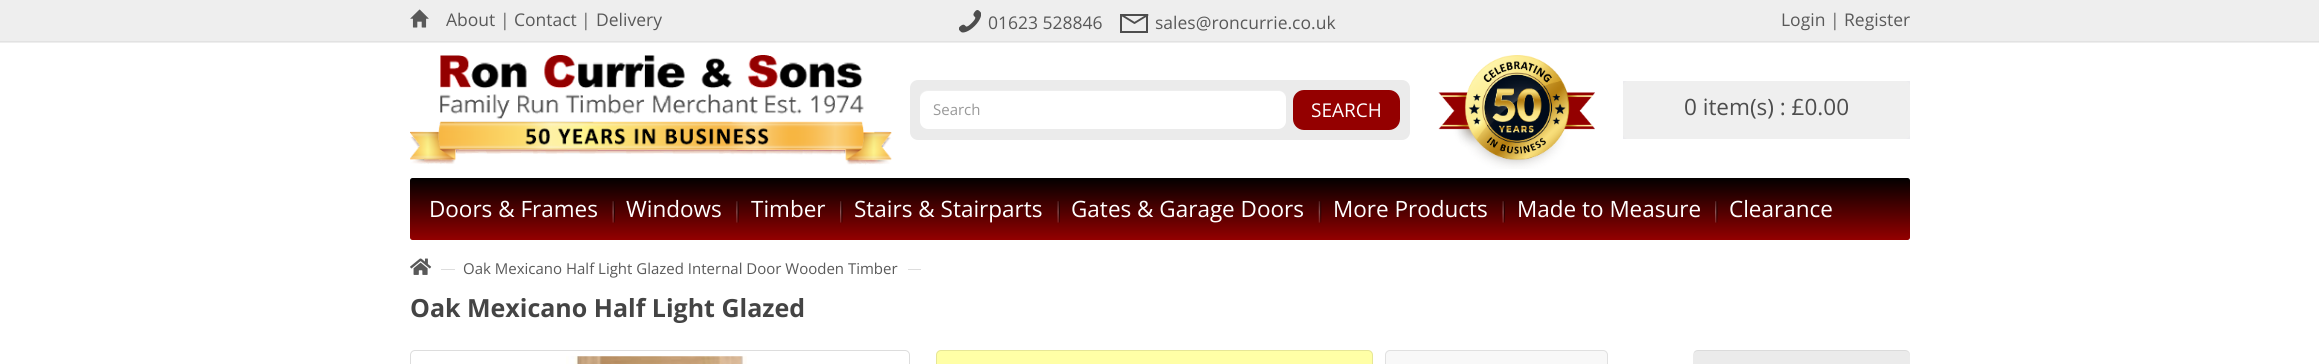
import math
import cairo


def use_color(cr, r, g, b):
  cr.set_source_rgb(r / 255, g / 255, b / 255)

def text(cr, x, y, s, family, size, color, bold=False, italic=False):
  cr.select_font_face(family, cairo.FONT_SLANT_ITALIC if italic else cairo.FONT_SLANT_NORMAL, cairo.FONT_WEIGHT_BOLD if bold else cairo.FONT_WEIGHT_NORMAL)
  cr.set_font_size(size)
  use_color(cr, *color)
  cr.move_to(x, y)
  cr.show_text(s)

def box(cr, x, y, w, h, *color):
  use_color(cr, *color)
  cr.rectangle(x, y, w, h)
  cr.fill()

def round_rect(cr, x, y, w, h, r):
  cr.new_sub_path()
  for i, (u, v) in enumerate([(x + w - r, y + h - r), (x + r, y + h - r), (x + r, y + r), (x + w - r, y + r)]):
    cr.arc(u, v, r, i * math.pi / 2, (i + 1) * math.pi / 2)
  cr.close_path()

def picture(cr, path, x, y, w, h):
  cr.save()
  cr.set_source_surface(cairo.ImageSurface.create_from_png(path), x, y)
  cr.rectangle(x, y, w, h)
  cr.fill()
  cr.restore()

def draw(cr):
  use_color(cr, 255, 255, 255)
  cr.paint()
  box(cr, 0, 0, 2319, 43, 238, 238, 238)
  box(cr, 0, 41, 2319, 1, 226, 226, 226)
  picture(cr, "img_01.png", 410, 9, 19, 19)
  picture(cr, "img_02.png", 959, 10, 22, 23)
  cr.rectangle(1121, 15, 26, 17)
  use_color(cr, 77, 77, 77)
  cr.stroke()
  cr.new_path()
  cr.move_to(1134.5, 23)
  cr.line_to(1121.5, 15)
  cr.move_to(1134.5, 23)
  cr.line_to(1147.5, 15)
  cr.set_line_width(1.9)
  cr.set_line_cap(cairo.LINE_CAP_ROUND)
  cr.set_line_join(cairo.LINE_JOIN_ROUND)
  cr.stroke()
  picture(cr, "img_03.png", 410, 55, 482, 110)
  use_color(cr, 235, 235, 235)
  round_rect(cr, 910, 80, 500, 60, 8)
  cr.fill()
  use_color(cr, 255, 255, 255)
  round_rect(cr, 920, 90, 366, 39, 8)
  cr.fill()
  cr.set_source_rgba(0, 0, 0, 0.07)
  cr.new_path()
  cr.move_to(928, 91)
  cr.line_to(1279, 91)
  cr.curve_to(1283, 91, 1286, 95, 1286, 99)
  cr.curve_to(1286, 94, 1283, 90, 1278, 90)
  cr.line_to(928, 90)
  cr.curve_to(923, 90, 920, 94, 920, 99)
  cr.curve_to(920, 95, 923, 91, 928, 91)
  cr.close_path()
  cr.fill()
  use_color(cr, 148, 0, 0)
  round_rect(cr, 1293, 90, 107, 40, 11)
  cr.fill()
  picture(cr, "img_04.png", 1438, 55, 157, 114)
  box(cr, 1623, 81, 287, 58, 235, 235, 238)
  use_color(cr, 239, 239, 239)
  round_rect(cr, 1623, 81, 287, 58, 5)
  cr.fill()
  gradient = cairo.LinearGradient(1160, 177, 1160, 240)
  gradient.add_color_stop_rgba(0, 0, 0, 0, 1)
  gradient.add_color_stop_rgba(1, 0.58, 0, 0, 1)
  cr.set_source(gradient)
  round_rect(cr, 410, 178, 1500, 62, 2.5)
  cr.fill()
  picture(cr, "img_05.png", 612, 201, 3, 22)
  picture(cr, "img_06.png", 736, 201, 3, 22)
  picture(cr, "img_07.png", 840, 201, 3, 22)
  picture(cr, "img_05.png", 1057, 201, 3, 22)
  picture(cr, "img_08.png", 1318, 201, 4, 22)
  picture(cr, "img_05.png", 1502, 201, 3, 22)
  picture(cr, "img_07.png", 1715, 201, 3, 22)
  picture(cr, "img_09.png", 410, 258, 22, 17)
  box(cr, 441, 269, 14, 1, 221, 221, 221)
  box(cr, 908, 269, 13, 1, 221, 221, 221)
  round_rect(cr, 410.5, 350.5, 499, 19, 4.5)
  cr.set_line_width(1)
  cr.set_line_cap(cairo.LINE_CAP_BUTT)
  cr.set_line_join(cairo.LINE_JOIN_MITER)
  cr.stroke()
  picture(cr, "img_10.png", 566, 356, 181, 8)
  use_color(cr, 255, 255, 166)
  round_rect(cr, 936, 350, 437, 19, 5)
  cr.fill()
  round_rect(cr, 936.5, 350.5, 436, 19, 4.5)
  cr.set_source_rgba(0, 0, 0, 0.1)
  cr.stroke()
  use_color(cr, 248, 248, 248)
  round_rect(cr, 1385, 350, 223, 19, 5)
  cr.fill()
  round_rect(cr, 1385.5, 350.5, 222, 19, 4.5)
  cr.set_source_rgba(0, 0, 0, 0.1)
  cr.stroke()
  use_color(cr, 235, 235, 235)
  round_rect(cr, 1693, 350, 217, 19, 5)
  cr.fill()
  cr.set_source_rgba(0, 0, 0, 0.07)
  cr.new_path()
  cr.move_to(1698, 351)
  cr.line_to(1905, 351)
  cr.curve_to(1908, 351, 1910, 353, 1910, 356)
  cr.line_to(1910, 355)
  cr.curve_to(1910, 352, 1908, 350, 1905, 350)
  cr.line_to(1698, 350)
  cr.curve_to(1696, 350, 1694, 351, 1694, 353)
  cr.curve_to(1695, 352, 1696, 351, 1698, 351)
  cr.close_path()
  cr.fill()
  text(cr, 446, 26, "About", "Open Sans", 17.5, (89, 89, 89))
  text(cr, 500, 26, "|", "Open Sans", 17.5, (102, 102, 102))
  text(cr, 514, 26, "Contact", "Open Sans", 17.5, (89, 89, 89))
  text(cr, 581, 26, "|", "Open Sans", 17.5, (102, 102, 102))
  text(cr, 596, 26, "Delivery", "Open Sans", 17.5, (89, 89, 89))
  text(cr, 988, 29, "01623 528846", "Open Sans", 17.5, (89, 89, 89))
  text(cr, 1155, 29, "sales@roncurrie.co.uk", "Open Sans", 17.5, (89, 89, 89))
  text(cr, 1781, 26, "Login", "Open Sans", 17.5, (89, 89, 89))
  text(cr, 1830, 26, "|", "Open Sans", 17.5, (102, 102, 102))
  text(cr, 1844, 26, "Register", "Open Sans", 17.5, (89, 89, 89))
  text(cr, 933, 115, "Search", "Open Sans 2", 15, (153, 153, 153))
  text(cr, 1311, 117, "SEARCH", "Open Sans", 19, (255, 255, 255))
  text(cr, 1684, 115, "0 item(s) : £0.00", "Open Sans", 22.5, (77, 77, 77))
  text(cr, 429, 217, "Doors & Frames", "Open Sans 2", 22.5, (255, 255, 255))
  text(cr, 626, 217, "Windows", "Open Sans 2", 22.5, (255, 255, 255))
  text(cr, 751, 217, "Timber", "Open Sans 2", 22.5, (255, 255, 255))
  text(cr, 854, 217, "Stairs & Stairparts", "Open Sans 2", 22.5, (255, 255, 255))
  text(cr, 1071, 217, "Gates & Garage Doors", "Open Sans 2", 22.5, (255, 255, 255))
  text(cr, 1333, 217, "More Products", "Open Sans 2", 22.5, (255, 255, 255))
  text(cr, 1517, 217, "Made to Measure", "Open Sans 2", 22.5, (255, 255, 255))
  text(cr, 1729, 217, "Clearance", "Open Sans 2", 22.5, (255, 255, 255))
  text(cr, 463, 274, "Oak Mexicano Half Light Glazed Internal Door Wooden Timber", "Open Sans 2", 15, (89, 89, 89))
  text(cr, 410, 317, "Oak Mexicano Half Light Glazed", "Open Sans", 25, (68, 68, 68), bold=True)


surface = cairo.ImageSurface(cairo.FORMAT_RGB24, 2319, 364)
cr = cairo.Context(surface)
options = cairo.FontOptions()
options.set_hint_metrics(cairo.HINT_METRICS_OFF)
options.set_hint_style(cairo.HINT_STYLE_NONE)
cr.set_font_options(options)
cr.set_miter_limit(4)
draw(cr)
surface.write_to_png("out.png")
